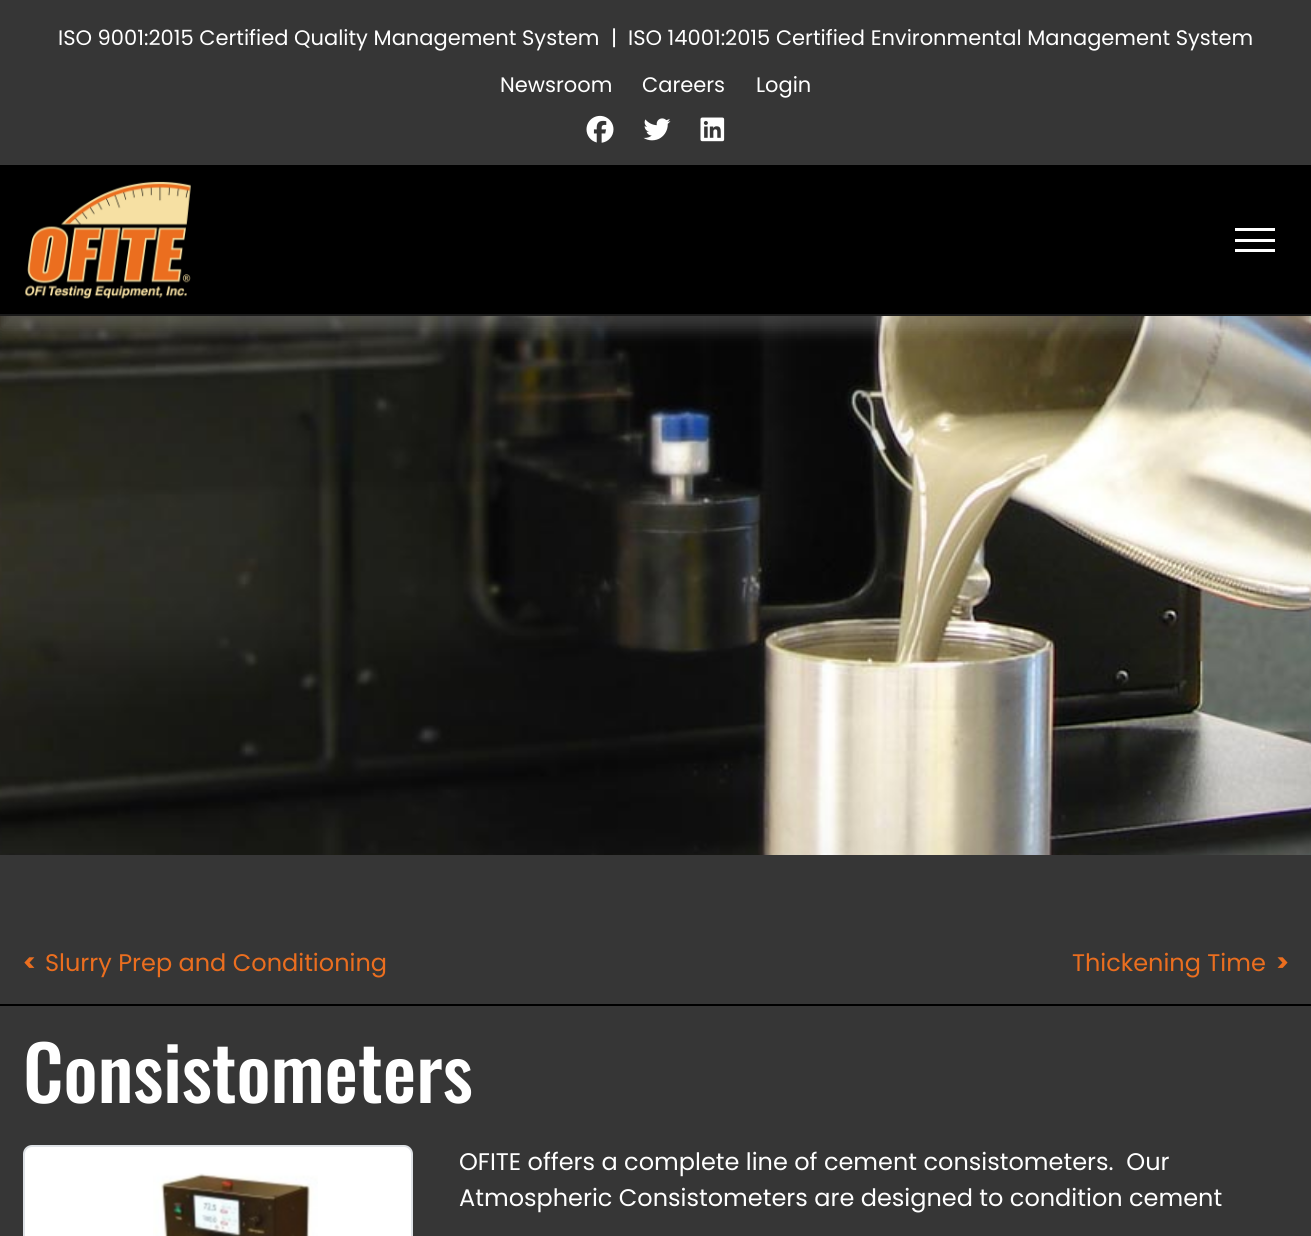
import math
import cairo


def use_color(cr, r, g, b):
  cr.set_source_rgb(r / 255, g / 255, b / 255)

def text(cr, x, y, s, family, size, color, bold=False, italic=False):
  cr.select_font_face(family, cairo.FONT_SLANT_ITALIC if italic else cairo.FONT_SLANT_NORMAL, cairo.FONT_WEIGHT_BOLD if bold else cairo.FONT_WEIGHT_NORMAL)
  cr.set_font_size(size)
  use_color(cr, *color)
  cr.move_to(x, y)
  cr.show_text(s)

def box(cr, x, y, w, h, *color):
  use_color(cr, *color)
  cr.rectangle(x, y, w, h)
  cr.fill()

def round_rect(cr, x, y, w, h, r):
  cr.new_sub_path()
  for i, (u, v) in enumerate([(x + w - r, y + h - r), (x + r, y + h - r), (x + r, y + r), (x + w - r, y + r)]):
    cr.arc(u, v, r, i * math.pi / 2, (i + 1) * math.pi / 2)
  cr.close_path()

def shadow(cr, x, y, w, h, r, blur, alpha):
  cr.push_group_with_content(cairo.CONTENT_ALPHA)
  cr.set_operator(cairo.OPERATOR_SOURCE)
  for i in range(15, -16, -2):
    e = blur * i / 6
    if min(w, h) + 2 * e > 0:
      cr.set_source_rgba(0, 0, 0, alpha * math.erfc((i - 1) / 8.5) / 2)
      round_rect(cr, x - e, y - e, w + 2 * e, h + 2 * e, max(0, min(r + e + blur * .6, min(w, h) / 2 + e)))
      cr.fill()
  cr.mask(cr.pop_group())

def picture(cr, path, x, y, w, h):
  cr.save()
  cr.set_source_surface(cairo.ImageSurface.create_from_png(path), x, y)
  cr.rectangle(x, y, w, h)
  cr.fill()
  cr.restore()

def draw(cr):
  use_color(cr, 54, 54, 54)
  cr.paint()
  picture(cr, "img_01.png", 586, 115, 28, 28)
  picture(cr, "img_02.png", 643, 118, 28, 23)
  picture(cr, "img_03.png", 700, 117, 25, 25)
  picture(cr, "img_05.png", 0, 316, 1311, 539)
  use_color(cr, 255, 255, 255)
  shadow(cr, 0, 180, 1311, 150, 0, 7.5, 0.2)
  box(cr, 0, 165, 1311, 149, 0, 0, 0)
  box(cr, 0, 314, 1311, 2, 26, 26, 26)
  picture(cr, "img_04.png", 25, 181, 166, 118)
  box(cr, 1235, 228, 40, 3, 255, 255, 255)
  box(cr, 1235, 239, 40, 3, 255, 255, 255)
  box(cr, 1235, 249, 40, 3, 255, 255, 255)
  box(cr, 0, 1004, 1311, 2, 0, 0, 0)
  use_color(cr, 255, 255, 255)
  round_rect(cr, 24, 1146, 388, 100, 8)
  cr.fill_preserve()
  use_color(cr, 222, 226, 230)
  cr.stroke()
  picture(cr, "img_06.png", 153, 1173, 165, 63)
  text(cr, 58, 45, "ISO 9001:2015 Certified Quality Management System", "Poppins", 21, (255, 255, 255))
  text(cr, 611, 45, "|", "Poppins", 21, (255, 255, 255))
  text(cr, 628, 45, "ISO 14001:2015 Certified Environmental Management System", "Poppins", 21, (255, 255, 255))
  text(cr, 500, 92, "Newsroom", "Poppins", 21, (255, 255, 255))
  text(cr, 642, 92, "Careers", "Poppins", 21, (255, 255, 255))
  text(cr, 756, 92, "Login", "Poppins", 21, (255, 255, 255))
  text(cr, 23, 971, "<", "Poppins", 24, (235, 110, 31), bold=True)
  text(cr, 45, 971, "Slurry Prep and Conditioning", "Poppins", 24, (235, 110, 31))
  text(cr, 1072, 971, "Thickening Time", "Poppins", 24, (235, 110, 31))
  text(cr, 1276, 971, ">", "Poppins", 24, (235, 110, 31), bold=True)
  text(cr, 23, 1103, "Consistometers", "Oswald Medium", 75, (255, 255, 255))
  text(cr, 459, 1170, "OFITE offers a complete line of cement consistometers.  Our", "Poppins", 24, (255, 255, 255))
  text(cr, 459, 1206, "Atmospheric Consistometers are designed to condition cement", "Poppins", 24, (255, 255, 255))


surface = cairo.ImageSurface(cairo.FORMAT_RGB24, 1311, 1236)
cr = cairo.Context(surface)
options = cairo.FontOptions()
options.set_hint_metrics(cairo.HINT_METRICS_OFF)
options.set_hint_style(cairo.HINT_STYLE_NONE)
cr.set_font_options(options)
cr.set_miter_limit(4)
draw(cr)
surface.write_to_png("out.png")
